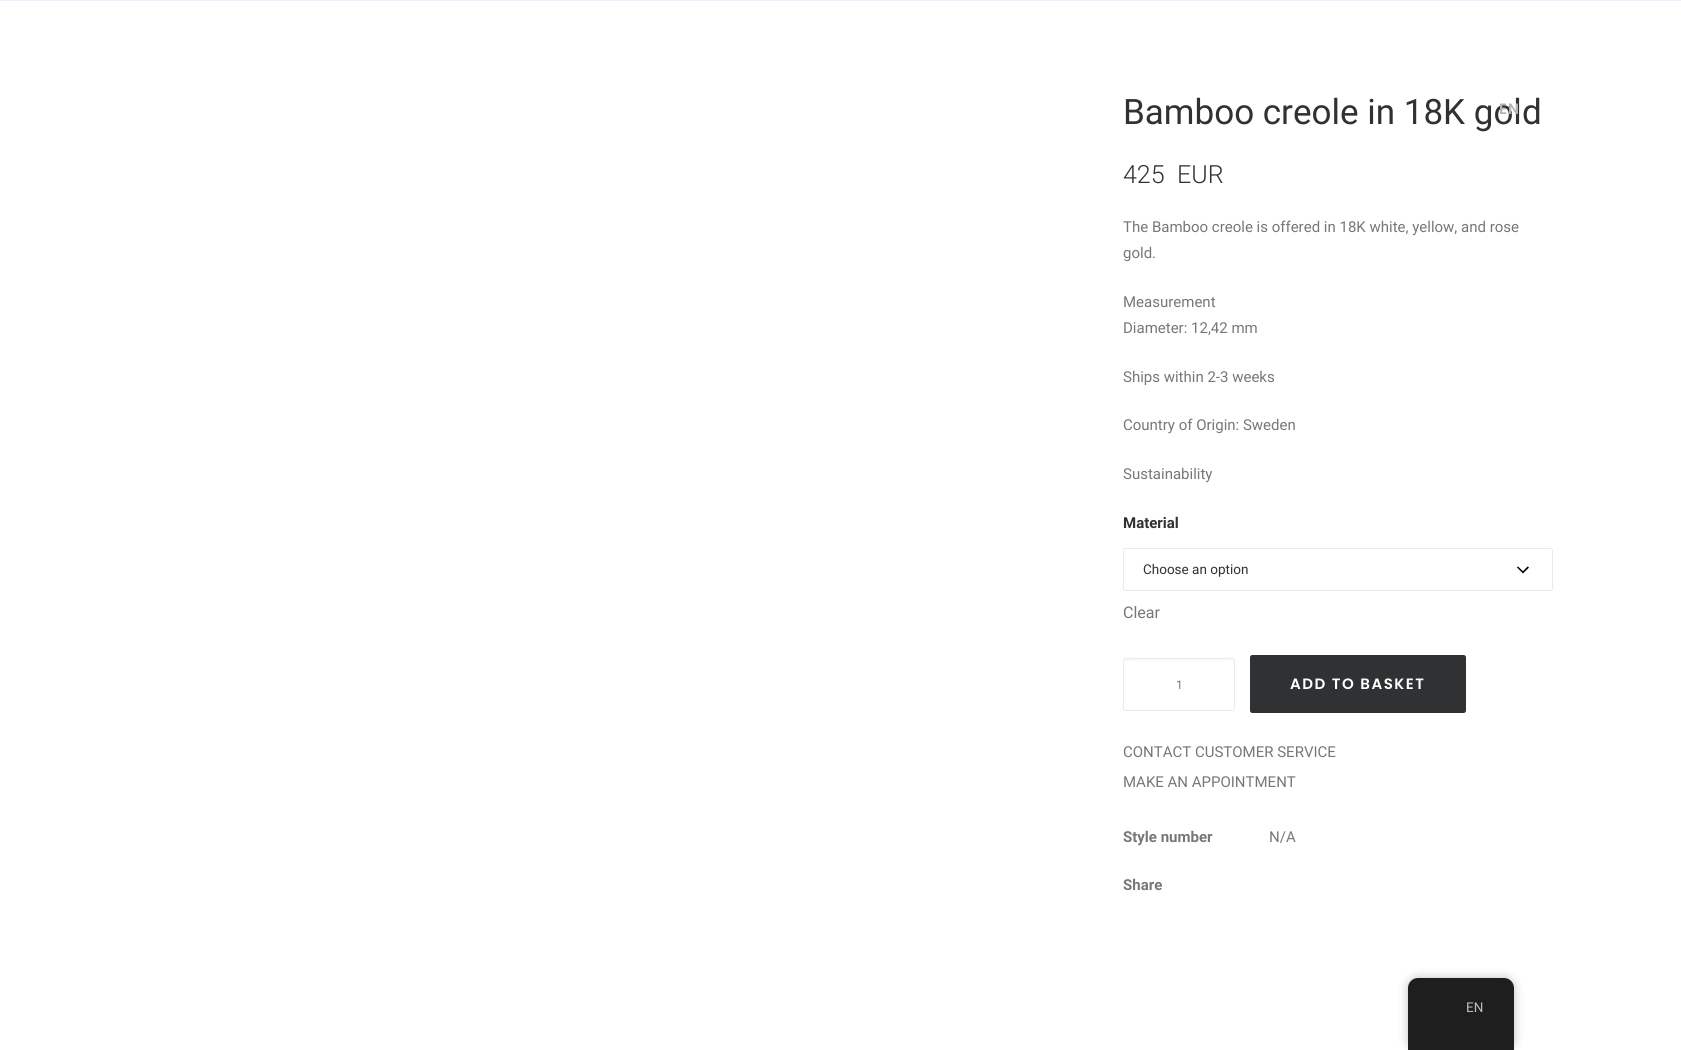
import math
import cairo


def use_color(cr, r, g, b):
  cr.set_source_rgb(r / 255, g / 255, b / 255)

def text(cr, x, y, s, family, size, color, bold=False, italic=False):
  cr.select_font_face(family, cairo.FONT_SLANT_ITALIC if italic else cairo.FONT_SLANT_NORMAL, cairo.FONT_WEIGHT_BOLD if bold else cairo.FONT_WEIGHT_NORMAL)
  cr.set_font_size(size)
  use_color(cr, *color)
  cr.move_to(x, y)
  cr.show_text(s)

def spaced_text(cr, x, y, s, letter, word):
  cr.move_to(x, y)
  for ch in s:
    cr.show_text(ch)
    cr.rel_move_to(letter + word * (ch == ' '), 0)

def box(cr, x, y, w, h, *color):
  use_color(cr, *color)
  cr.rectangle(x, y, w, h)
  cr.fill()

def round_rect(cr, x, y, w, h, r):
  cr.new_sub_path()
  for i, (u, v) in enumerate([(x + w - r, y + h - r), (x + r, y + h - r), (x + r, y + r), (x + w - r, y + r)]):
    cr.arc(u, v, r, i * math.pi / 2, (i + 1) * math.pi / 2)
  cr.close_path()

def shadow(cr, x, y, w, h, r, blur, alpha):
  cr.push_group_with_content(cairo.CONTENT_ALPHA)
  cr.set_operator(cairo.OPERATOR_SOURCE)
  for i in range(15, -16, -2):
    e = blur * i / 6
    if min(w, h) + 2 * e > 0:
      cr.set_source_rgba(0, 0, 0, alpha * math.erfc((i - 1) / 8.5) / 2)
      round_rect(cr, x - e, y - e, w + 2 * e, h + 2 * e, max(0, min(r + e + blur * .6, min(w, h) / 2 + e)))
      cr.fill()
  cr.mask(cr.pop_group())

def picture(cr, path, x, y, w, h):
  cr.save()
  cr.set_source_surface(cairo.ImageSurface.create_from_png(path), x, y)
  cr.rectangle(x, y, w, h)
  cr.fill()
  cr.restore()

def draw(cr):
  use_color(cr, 235, 242, 249)
  cr.paint()
  box(cr, 0, 1, 1681, 1049, 255, 255, 255)
  picture(cr, "img_01.png", 1517, 566, 12, 8)
  round_rect(cr, 1123.5, 548.5, 429, 42, 2)
  use_color(cr, 234, 234, 234)
  cr.set_line_width(1)
  cr.stroke()
  use_color(cr, 249, 249, 249)
  cr.new_path()
  cr.move_to(1125, 661)
  cr.line_to(1232, 661)
  cr.line_to(1234, 662)
  cr.curve_to(1234, 653, 1225, 659, 1215, 659)
  cr.line_to(1143, 659)
  cr.curve_to(1133, 659, 1124, 653, 1124, 662)
  cr.close_path()
  cr.fill()
  round_rect(cr, 1123.5, 658.5, 111, 52, 2)
  use_color(cr, 234, 234, 234)
  cr.stroke()
  use_color(cr, 48, 49, 51)
  round_rect(cr, 1250.5, 655.5, 215, 57, 2)
  cr.fill_preserve()
  cr.stroke()
  use_color(cr, 0, 0, 0)
  shadow(cr, 1408, 978, 106, 72, 10, 5, 0.25)
  use_color(cr, 30, 30, 30)
  cr.new_path()
  cr.move_to(1418, 978)
  cr.line_to(1504, 978)
  cr.curve_to(1509.5, 978, 1514, 982.5, 1514, 988)
  cr.line_to(1514, 1050)
  cr.line_to(1408, 1050)
  cr.line_to(1408, 988)
  cr.curve_to(1408, 982.5, 1412.5, 978, 1418, 978)
  cr.close_path()
  cr.fill()
  text(cr, 1123, 124, "Bamboo creole in 18K gold", "Roboto", 35, (48, 49, 51))
  text(cr, 1123, 183, "425", "Roboto Light", 25, (48, 49, 51))
  text(cr, 1177, 183, "EUR", "Roboto Light", 25, (48, 49, 51))
  text(cr, 1123, 232, "The Bamboo creole is offered in 18K white, yellow, and rose", "Roboto", 15, (119, 119, 119))
  text(cr, 1123, 258, "gold.", "Roboto", 15, (119, 119, 119))
  text(cr, 1123, 307, "Measurement", "Roboto", 15, (119, 119, 119))
  text(cr, 1123, 333, "Diameter: 12,42 mm", "Roboto", 15, (119, 119, 119))
  text(cr, 1123, 382, "Ships within 2-3 weeks", "Roboto", 15, (119, 119, 119))
  text(cr, 1123, 430, "Country of Origin: Sweden", "Roboto", 15, (119, 119, 119))
  text(cr, 1123, 479, "Sustainability", "Roboto", 15, (119, 119, 119))
  text(cr, 1123, 528, "Material", "Roboto", 15, (48, 49, 51), bold=True)
  text(cr, 1143, 574, "Choose an option", "Roboto", 13.5, (48, 49, 51))
  text(cr, 1123, 618, "Clear", "Roboto", 16, (119, 119, 119))
  text(cr, 1176, 689, "1", "Roboto", 12, (119, 119, 119))
  cr.select_font_face("Poppins SemiBold")
  cr.set_font_size(15)
  use_color(cr, 255, 255, 255)
  spaced_text(cr, 1290, 689, "ADD TO BASKET", 1.5, 0)
  text(cr, 1123, 757, "CONTACT CUSTOMER SERVICE", "Roboto", 15, (119, 119, 119))
  text(cr, 1123, 787, "MAKE AN APPOINTMENT", "Roboto", 15, (119, 119, 119))
  text(cr, 1123, 842, "Style number", "Roboto", 15, (119, 119, 119), bold=True)
  text(cr, 1269, 842, "N/A", "Roboto", 15, (119, 119, 119))
  text(cr, 1123, 890, "Share", "Roboto", 15, (119, 119, 119), bold=True)
  cr.select_font_face("Poppins SemiBold")
  use_color(cr, 179, 179, 180)
  spaced_text(cr, 1499, 114, "EN", 1, 0)
  text(cr, 1466, 1012, "EN", "Roboto", 13.5, (189, 189, 189))


surface = cairo.ImageSurface(cairo.FORMAT_RGB24, 1681, 1050)
cr = cairo.Context(surface)
options = cairo.FontOptions()
options.set_hint_metrics(cairo.HINT_METRICS_OFF)
options.set_hint_style(cairo.HINT_STYLE_NONE)
cr.set_font_options(options)
cr.set_miter_limit(4)
draw(cr)
surface.write_to_png("out.png")
